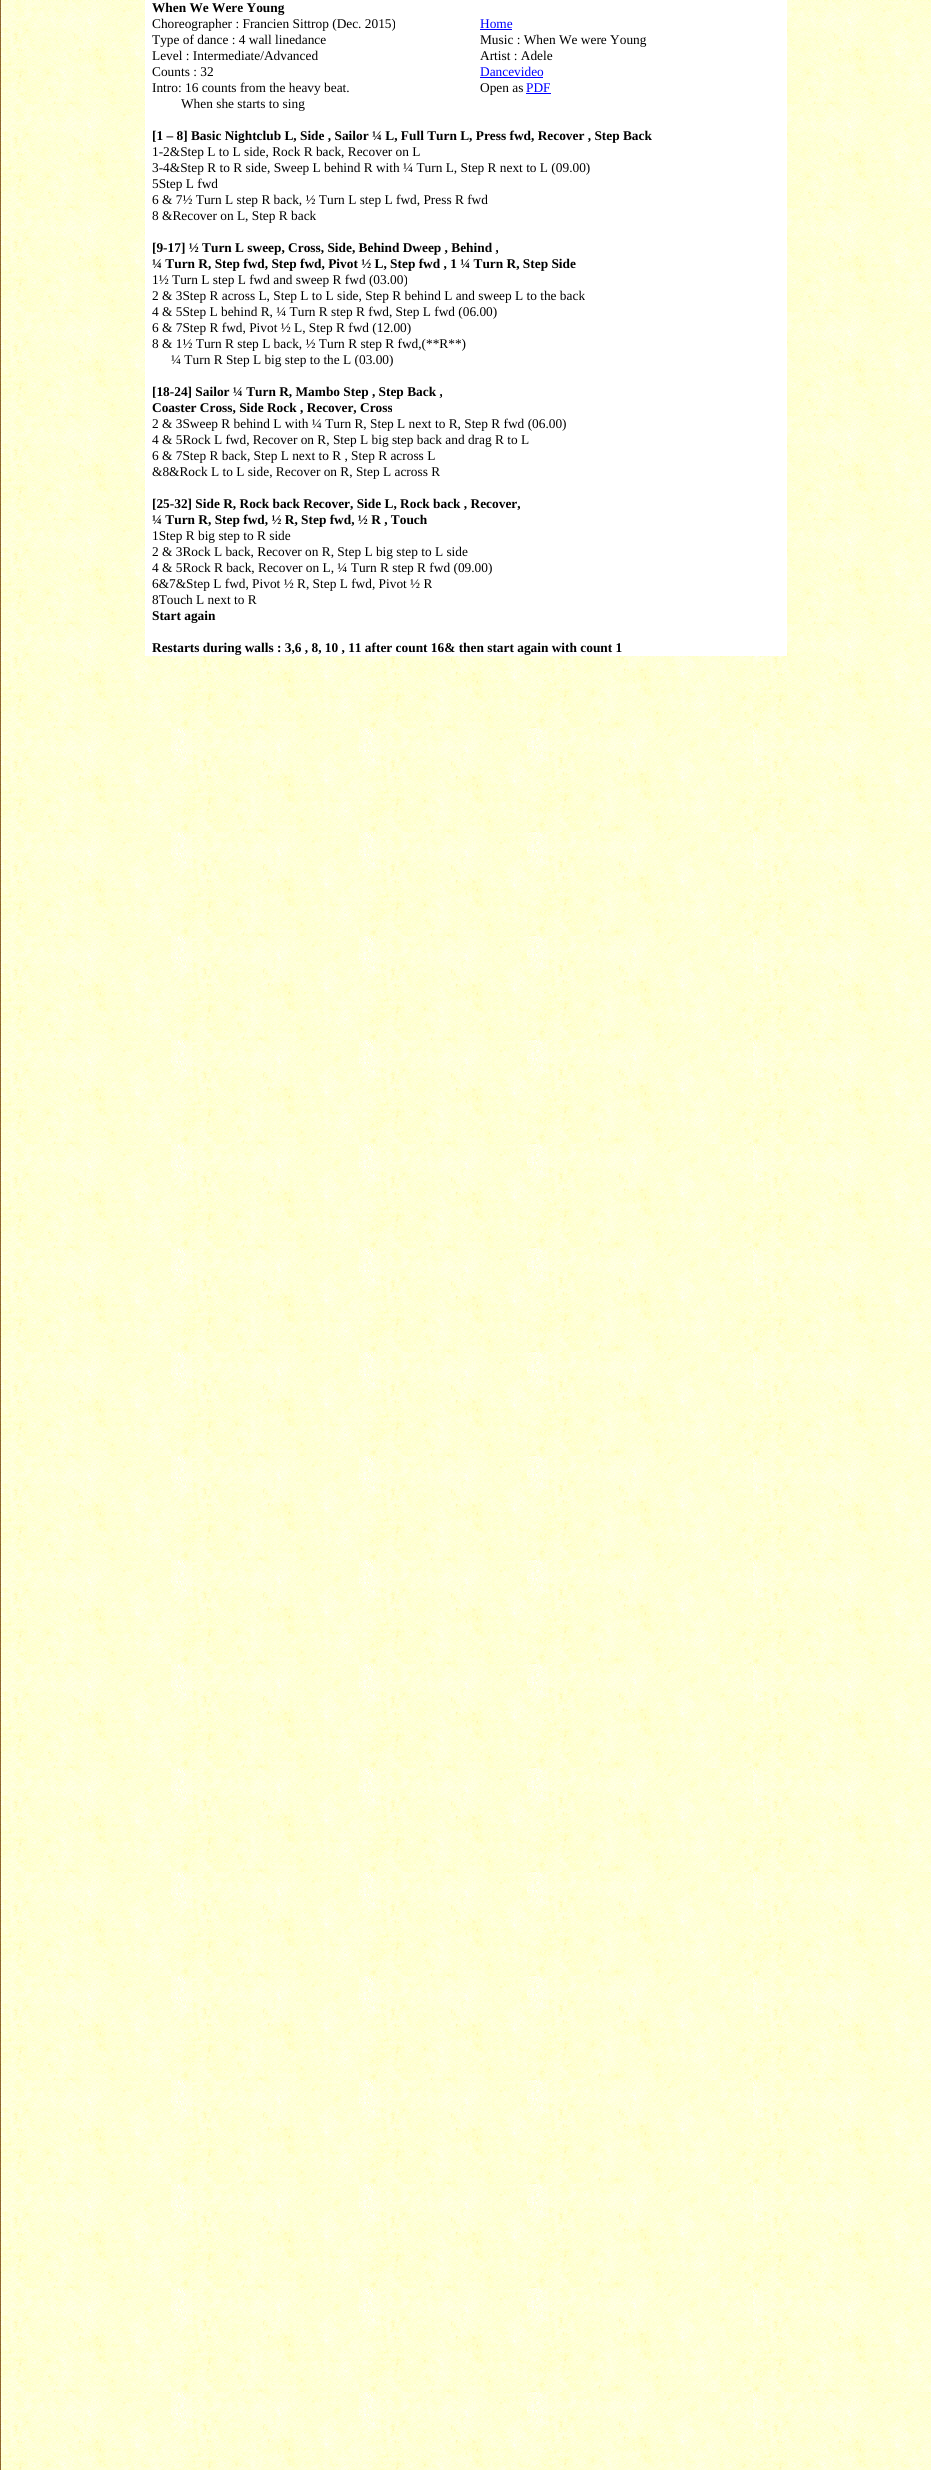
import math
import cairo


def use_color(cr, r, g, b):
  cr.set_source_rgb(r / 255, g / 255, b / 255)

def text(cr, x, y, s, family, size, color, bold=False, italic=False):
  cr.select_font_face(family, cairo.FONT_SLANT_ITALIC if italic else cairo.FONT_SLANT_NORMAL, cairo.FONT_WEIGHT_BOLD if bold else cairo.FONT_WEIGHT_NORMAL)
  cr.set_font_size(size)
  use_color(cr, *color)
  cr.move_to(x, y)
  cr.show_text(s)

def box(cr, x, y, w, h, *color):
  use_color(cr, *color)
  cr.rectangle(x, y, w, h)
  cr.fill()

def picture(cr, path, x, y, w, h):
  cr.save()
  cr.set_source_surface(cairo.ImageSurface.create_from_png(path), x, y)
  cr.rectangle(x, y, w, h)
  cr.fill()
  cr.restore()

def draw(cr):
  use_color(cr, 255, 255, 255)
  cr.paint()
  picture(cr, "img_01.png", 0, 0, 931, 2470)
  box(cr, 145, 0, 642, 656, 255, 255, 255)
  box(cr, 480, 29, 32, 1, 0, 0, 255)
  box(cr, 480, 77, 63, 1, 0, 0, 255)
  box(cr, 526, 93, 25, 1, 0, 0, 255)
  text(cr, 152, 12, "When We Were Young", "Liberation Serif", 13.35, (0, 0, 0), bold=True)
  text(cr, 152, 28, "Choreographer : Francien Sittrop (Dec. 2015)", "Liberation Serif", 13.35, (0, 0, 0))
  text(cr, 152, 44, "Type of dance : 4 wall linedance", "Liberation Serif", 13.35, (0, 0, 0))
  text(cr, 152, 60, "Level : Intermediate/Advanced", "Liberation Serif", 13.35, (0, 0, 0))
  text(cr, 152, 76, "Counts : 32", "Liberation Serif", 13.35, (0, 0, 0))
  text(cr, 152, 92, "Intro: 16 counts from the heavy beat.", "Liberation Serif", 13.35, (0, 0, 0))
  text(cr, 181, 108, "When she starts to sing", "Liberation Serif", 13.35, (0, 0, 0))
  text(cr, 480, 28, "Home", "Liberation Serif", 13.35, (0, 0, 255))
  text(cr, 480, 44, "Music : When We were Young", "Liberation Serif", 13.35, (0, 0, 0))
  text(cr, 480, 60, "Artist : Adele", "Liberation Serif", 13.35, (0, 0, 0))
  text(cr, 480, 76, "Dancevideo", "Liberation Serif", 13.35, (0, 0, 255))
  text(cr, 480, 92, "Open as", "Liberation Serif", 13.35, (0, 0, 0))
  text(cr, 526, 92, "PDF", "Liberation Serif", 13.35, (0, 0, 255))
  text(cr, 152, 140, "[1 – 8] Basic Nightclub L, Side , Sailor ¼ L, Full Turn L, Press fwd, Recover , Step Back", "Liberation Serif", 13.35, (0, 0, 0), bold=True)
  text(cr, 152, 156, "1-2&Step L to L side, Rock R back, Recover on L", "Liberation Serif", 13.35, (0, 0, 0))
  text(cr, 152, 172, "3-4&Step R to R side, Sweep L behind R with ¼ Turn L, Step R next to L (09.00)", "Liberation Serif", 13.35, (0, 0, 0))
  text(cr, 152, 188, "5Step L fwd", "Liberation Serif", 13.35, (0, 0, 0))
  text(cr, 152, 204, "6 & 7½ Turn L step R back, ½ Turn L step L fwd, Press R fwd", "Liberation Serif", 13.35, (0, 0, 0))
  text(cr, 152, 220, "8 &Recover on L, Step R back", "Liberation Serif", 13.35, (0, 0, 0))
  text(cr, 152, 252, "[9-17] ½ Turn L sweep, Cross, Side, Behind Dweep , Behind ,", "Liberation Serif", 13.35, (0, 0, 0), bold=True)
  text(cr, 152, 268, "¼ Turn R, Step fwd, Step fwd, Pivot ½ L, Step fwd , 1 ¼ Turn R, Step Side", "Liberation Serif", 13.35, (0, 0, 0), bold=True)
  text(cr, 152, 284, "1½ Turn L step L fwd and sweep R fwd (03.00)", "Liberation Serif", 13.35, (0, 0, 0))
  text(cr, 152, 300, "2 & 3Step R across L, Step L to L side, Step R behind L and sweep L to the back", "Liberation Serif", 13.35, (0, 0, 0))
  text(cr, 152, 316, "4 & 5Step L behind R, ¼ Turn R step R fwd, Step L fwd (06.00)", "Liberation Serif", 13.35, (0, 0, 0))
  text(cr, 152, 332, "6 & 7Step R fwd, Pivot ½ L, Step R fwd (12.00)", "Liberation Serif", 13.35, (0, 0, 0))
  text(cr, 152, 348, "8 & 1½ Turn R step L back, ½ Turn R step R fwd,(**R**)", "Liberation Serif", 13.35, (0, 0, 0))
  text(cr, 171, 364, "¼ Turn R Step L big step to the L (03.00)", "Liberation Serif", 13.35, (0, 0, 0))
  text(cr, 152, 396, "[18-24] Sailor ¼ Turn R, Mambo Step , Step Back ,", "Liberation Serif", 13.35, (0, 0, 0), bold=True)
  text(cr, 152, 412, "Coaster Cross, Side Rock , Recover, Cross", "Liberation Serif", 13.35, (0, 0, 0), bold=True)
  text(cr, 152, 428, "2 & 3Sweep R behind L with ¼ Turn R, Step L next to R, Step R fwd (06.00)", "Liberation Serif", 13.35, (0, 0, 0))
  text(cr, 152, 444, "4 & 5Rock L fwd, Recover on R, Step L big step back and drag R to L", "Liberation Serif", 13.35, (0, 0, 0))
  text(cr, 152, 460, "6 & 7Step R back, Step L next to R , Step R across L", "Liberation Serif", 13.35, (0, 0, 0))
  text(cr, 152, 476, "&8&Rock L to L side, Recover on R, Step L across R", "Liberation Serif", 13.35, (0, 0, 0))
  text(cr, 152, 508, "[25-32] Side R, Rock back Recover, Side L, Rock back , Recover,", "Liberation Serif", 13.35, (0, 0, 0), bold=True)
  text(cr, 152, 524, "¼ Turn R, Step fwd, ½ R, Step fwd, ½ R , Touch", "Liberation Serif", 13.35, (0, 0, 0), bold=True)
  text(cr, 152, 540, "1Step R big step to R side", "Liberation Serif", 13.35, (0, 0, 0))
  text(cr, 152, 556, "2 & 3Rock L back, Recover on R, Step L big step to L side", "Liberation Serif", 13.35, (0, 0, 0))
  text(cr, 152, 572, "4 & 5Rock R back, Recover on L, ¼ Turn R step R fwd (09.00)", "Liberation Serif", 13.35, (0, 0, 0))
  text(cr, 152, 588, "6&7&Step L fwd, Pivot ½ R, Step L fwd, Pivot ½ R", "Liberation Serif", 13.35, (0, 0, 0))
  text(cr, 152, 604, "8Touch L next to R", "Liberation Serif", 13.35, (0, 0, 0))
  text(cr, 152, 620, "Start again", "Liberation Serif", 13.35, (0, 0, 0), bold=True)
  text(cr, 152, 652, "Restarts during walls : 3,6 , 8, 10 , 11 after count 16& then start again with count 1", "Liberation Serif", 13.35, (0, 0, 0), bold=True)


surface = cairo.ImageSurface(cairo.FORMAT_RGB24, 931, 2470)
cr = cairo.Context(surface)
options = cairo.FontOptions()
options.set_hint_metrics(cairo.HINT_METRICS_OFF)
options.set_hint_style(cairo.HINT_STYLE_NONE)
cr.set_font_options(options)
cr.set_miter_limit(4)
draw(cr)
surface.write_to_png("out.png")
